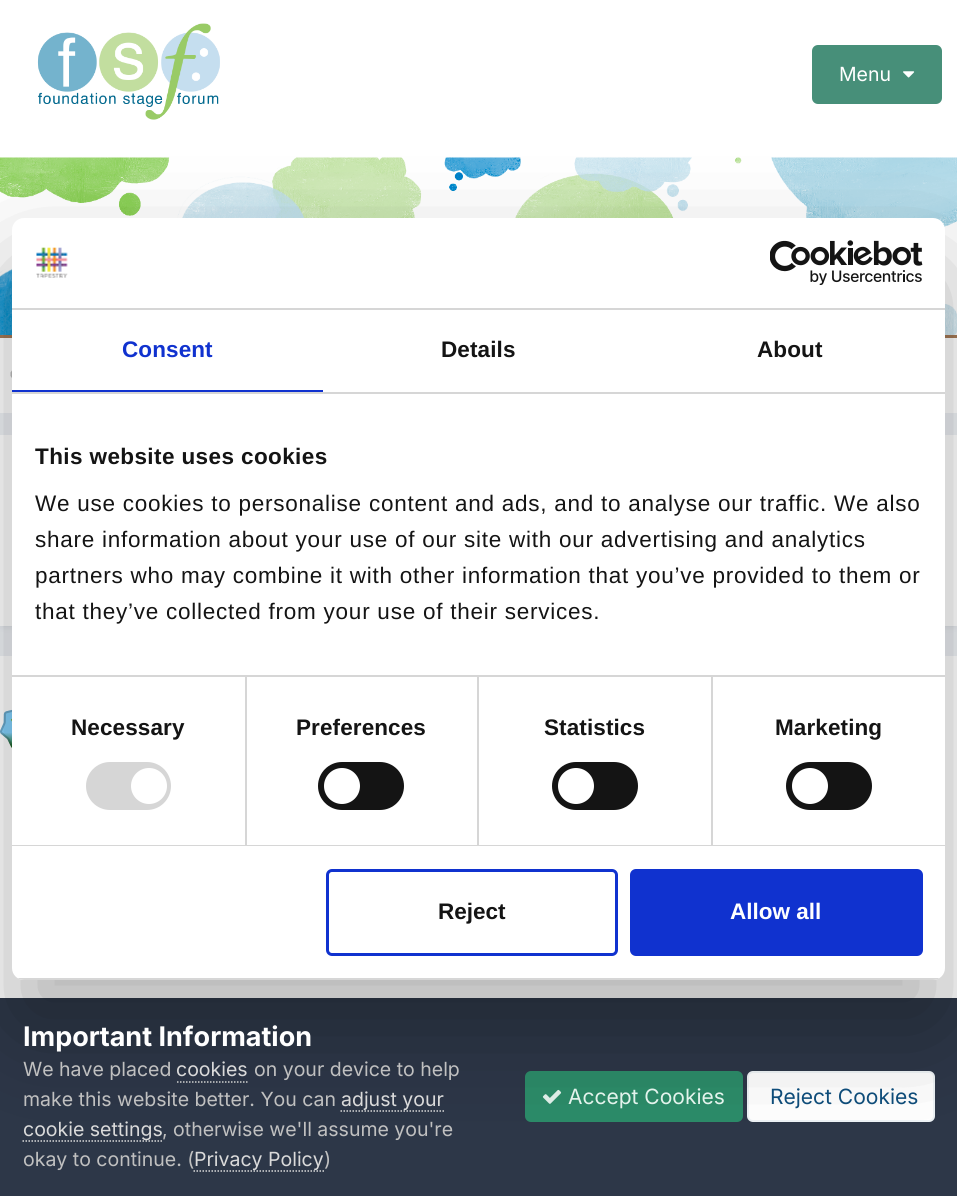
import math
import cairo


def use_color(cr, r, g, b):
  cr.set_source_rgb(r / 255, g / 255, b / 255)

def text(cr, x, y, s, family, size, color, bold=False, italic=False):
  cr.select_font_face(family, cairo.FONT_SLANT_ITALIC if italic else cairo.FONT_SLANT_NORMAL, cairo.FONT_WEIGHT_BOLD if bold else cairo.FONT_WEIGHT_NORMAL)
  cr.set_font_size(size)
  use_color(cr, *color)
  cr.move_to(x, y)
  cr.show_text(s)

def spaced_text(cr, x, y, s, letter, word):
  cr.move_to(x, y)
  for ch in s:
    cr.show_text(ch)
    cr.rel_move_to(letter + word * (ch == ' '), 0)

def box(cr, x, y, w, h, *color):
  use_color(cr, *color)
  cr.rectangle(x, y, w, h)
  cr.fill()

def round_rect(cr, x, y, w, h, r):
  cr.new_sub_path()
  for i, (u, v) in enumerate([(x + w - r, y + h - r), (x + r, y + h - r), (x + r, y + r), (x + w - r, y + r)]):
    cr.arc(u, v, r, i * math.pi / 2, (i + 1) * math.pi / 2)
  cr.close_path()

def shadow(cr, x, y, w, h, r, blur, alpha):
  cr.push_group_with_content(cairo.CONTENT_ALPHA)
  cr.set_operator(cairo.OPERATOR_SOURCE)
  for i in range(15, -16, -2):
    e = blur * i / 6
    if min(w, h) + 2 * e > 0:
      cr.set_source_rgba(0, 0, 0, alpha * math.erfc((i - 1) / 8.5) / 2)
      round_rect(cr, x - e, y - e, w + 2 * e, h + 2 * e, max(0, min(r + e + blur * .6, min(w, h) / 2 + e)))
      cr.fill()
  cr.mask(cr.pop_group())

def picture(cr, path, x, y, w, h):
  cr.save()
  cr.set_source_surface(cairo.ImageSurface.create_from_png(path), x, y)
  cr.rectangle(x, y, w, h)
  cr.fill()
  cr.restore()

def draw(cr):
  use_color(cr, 237, 240, 244)
  cr.paint()
  box(cr, 0, 0, 957, 158, 255, 255, 255)
  picture(cr, "img_01.png", 37, 23, 183, 97)
  use_color(cr, 71, 143, 121)
  round_rect(cr, 812, 45, 130, 59, 6)
  cr.fill()
  picture(cr, "img_02.png", 903, 71, 12, 7)
  picture(cr, "img_03.png", 0, 157, 957, 178)
  box(cr, 0, 335, 957, 3, 164, 121, 86)
  box(cr, 0, 338, 957, 75, 255, 255, 255)
  use_color(cr, 191, 191, 191)
  cr.new_path()
  cr.move_to(10.5, 376)
  cr.line_to(10.5, 374)
  cr.line_to(30, 374)
  cr.line_to(30, 396)
  cr.curve_to(27, 396, 23.5, 394.5, 21, 391)
  cr.close_path()
  cr.move_to(30, 352)
  cr.line_to(30, 374)
  cr.line_to(10.5, 374)
  cr.line_to(10.5, 372.5)
  cr.line_to(22.5, 355)
  cr.curve_to(25, 353, 27.5, 352, 30, 352)
  cr.close_path()
  cr.fill()
  use_color(cr, 45, 55, 72)
  shadow(cr, 2, 440, 954, 187, 0, 3, 0.1)
  box(cr, 0, 435, 957, 191, 255, 255, 255)
  box(cr, 0, 656, 957, 342, 255, 255, 255)
  picture(cr, "img_06.png", 0, 705, 12, 44)
  box(cr, 0, 998, 957, 198, 45, 55, 72)
  cr.new_path()
  cr.move_to(177, 1082)
  cr.line_to(247.5, 1082)
  use_color(cr, 218, 218, 218)
  cr.set_line_width(1.5)
  cr.set_dash([1.5, 1.5])
  cr.stroke()
  cr.new_path()
  cr.move_to(340.5, 1111)
  cr.line_to(444, 1111)
  cr.stroke()
  cr.new_path()
  cr.move_to(22.5, 1141)
  cr.line_to(162, 1141)
  cr.stroke()
  cr.new_path()
  cr.move_to(193.5, 1171)
  cr.line_to(324, 1171)
  cr.stroke()
  use_color(cr, 44, 140, 105)
  round_rect(cr, 525, 1071, 218, 51, 6)
  cr.fill()
  picture(cr, "img_07.png", 542, 1089, 20, 15)
  use_color(cr, 255, 255, 255)
  round_rect(cr, 747, 1071, 188, 51, 6)
  cr.fill()
  round_rect(cr, 748, 1072, 186, 49, 5)
  cr.set_source_rgba(0.055, 0.298, 0.475, 0.07)
  cr.set_line_width(2)
  cr.set_dash([])
  cr.stroke()
  use_color(cr, 0, 0, 0)
  shadow(cr, 12, 266, 933, 762, 12, 51, 0.3)
  use_color(cr, 255, 255, 255)
  round_rect(cr, 12, 218, 933, 762, 12)
  cr.fill()
  box(cr, 12, 308, 933, 2, 214, 214, 214)
  picture(cr, "img_04.png", 36, 247, 32, 31)
  picture(cr, "img_05.png", 770, 240, 153, 45)
  box(cr, 12, 392, 933, 2, 214, 214, 214)
  box(cr, 12, 390, 311, 2, 16, 50, 207)
  box(cr, 12, 675, 933, 2, 214, 214, 214)
  box(cr, 12, 845, 933, 1, 214, 214, 214)
  box(cr, 245, 677, 2, 168, 214, 214, 214)
  round_rect(cr, 86, 762, 85, 48, 24)
  cr.fill()
  use_color(cr, 255, 255, 255)
  cr.arc(149, 786, 18, 0, 2 * math.pi)
  cr.fill()
  box(cr, 477, 677, 2, 168, 214, 214, 214)
  use_color(cr, 20, 20, 20)
  round_rect(cr, 318, 762, 86, 48, 24)
  cr.fill()
  use_color(cr, 255, 255, 255)
  cr.arc(342, 786, 18, 0, 2 * math.pi)
  cr.fill()
  box(cr, 711, 677, 2, 168, 214, 214, 214)
  use_color(cr, 20, 20, 20)
  round_rect(cr, 552, 762, 86, 48, 24)
  cr.fill()
  use_color(cr, 255, 255, 255)
  cr.arc(576, 786, 18, 0, 2 * math.pi)
  cr.fill()
  use_color(cr, 20, 20, 20)
  round_rect(cr, 786, 762, 86, 48, 24)
  cr.fill()
  use_color(cr, 255, 255, 255)
  cr.arc(810, 786, 18, 0, 2 * math.pi)
  cr.fill()
  cr.save()
  round_rect(cr, 12, 218, 933, 762, 12)
  cr.clip()
  box(cr, 12, 978, 933, 2, 214, 214, 214)
  cr.restore()
  round_rect(cr, 327.5, 870.5, 289, 84, 4.5)
  use_color(cr, 16, 50, 207)
  cr.set_line_width(3)
  cr.stroke()
  round_rect(cr, 631.5, 870.5, 290, 84, 4.5)
  cr.fill_preserve()
  cr.stroke()
  text(cr, 839, 81, "Menu", "Inter", 19.5, (255, 255, 255))
  cr.select_font_face("Liberation Sans", cairo.FONT_SLANT_NORMAL, cairo.FONT_WEIGHT_BOLD)
  cr.set_font_size(22.5)
  use_color(cr, 16, 50, 207)
  spaced_text(cr, 122, 357, "Consent", 0.1, 0)
  use_color(cr, 20, 20, 20)
  spaced_text(cr, 441, 357, "Details", 0.1, 0)
  spaced_text(cr, 757, 357, "About", 0.1, 0)
  spaced_text(cr, 35, 464, "This website uses cookies", 0.4, 0)
  cr.select_font_face("Liberation Sans")
  spaced_text(cr, 35, 511, "We use cookies to personalise content and ads, and to analyse our traffic. We also", 0.75, 0)
  spaced_text(cr, 35, 547, "share information about your use of our site with our advertising and analytics", 0.75, 0)
  spaced_text(cr, 35, 583, "partners who may combine it with other information that you’ve provided to them or", 0.75, 0)
  spaced_text(cr, 35, 619, "that they’ve collected from your use of their services.", 0.75, 0)
  cr.select_font_face("Liberation Sans", cairo.FONT_SLANT_NORMAL, cairo.FONT_WEIGHT_BOLD)
  spaced_text(cr, 71, 735, "Necessary", 0.1, 0)
  spaced_text(cr, 296, 735, "Preferences", 0.1, 0)
  spaced_text(cr, 544, 735, "Statistics", 0.1, 0)
  spaced_text(cr, 775, 735, "Marketing", 0.1, 0)
  text(cr, 438, 919, "Reject", "Liberation Sans", 22.5, (20, 20, 20), bold=True)
  text(cr, 730, 919, "Allow all", "Liberation Sans", 22.5, (255, 255, 255), bold=True)
  text(cr, 23, 1046, "Important Information", "Inter", 27, (255, 255, 255), bold=True)
  text(cr, 23, 1076, "We have placed", "Inter", 19.5, (192, 192, 192))
  text(cr, 176, 1076, "cookies", "Inter", 19.5, (218, 218, 218))
  text(cr, 254, 1076, "on your device to help", "Inter", 19.5, (192, 192, 192))
  text(cr, 23, 1106, "make this website better. You can", "Inter", 19.5, (192, 192, 192))
  text(cr, 341, 1106, "adjust your", "Inter", 19.5, (218, 218, 218))
  text(cr, 23, 1136, "cookie settings", "Inter", 19.5, (218, 218, 218))
  text(cr, 162, 1136, ", otherwise we'll assume you're", "Inter", 19.5, (192, 192, 192))
  text(cr, 23, 1166, "okay to continue. (", "Inter", 19.5, (192, 192, 192))
  text(cr, 194, 1166, "Privacy Policy", "Inter", 19.5, (218, 218, 218))
  text(cr, 324, 1166, ")", "Inter", 19.5, (192, 192, 192))
  text(cr, 568, 1104, "Accept Cookies", "Inter", 21, (227, 243, 236))
  text(cr, 770, 1104, "Reject Cookies", "Inter", 21, (14, 76, 121))


surface = cairo.ImageSurface(cairo.FORMAT_RGB24, 957, 1196)
cr = cairo.Context(surface)
options = cairo.FontOptions()
options.set_hint_metrics(cairo.HINT_METRICS_OFF)
options.set_hint_style(cairo.HINT_STYLE_NONE)
cr.set_font_options(options)
cr.set_miter_limit(4)
draw(cr)
surface.write_to_png("out.png")
